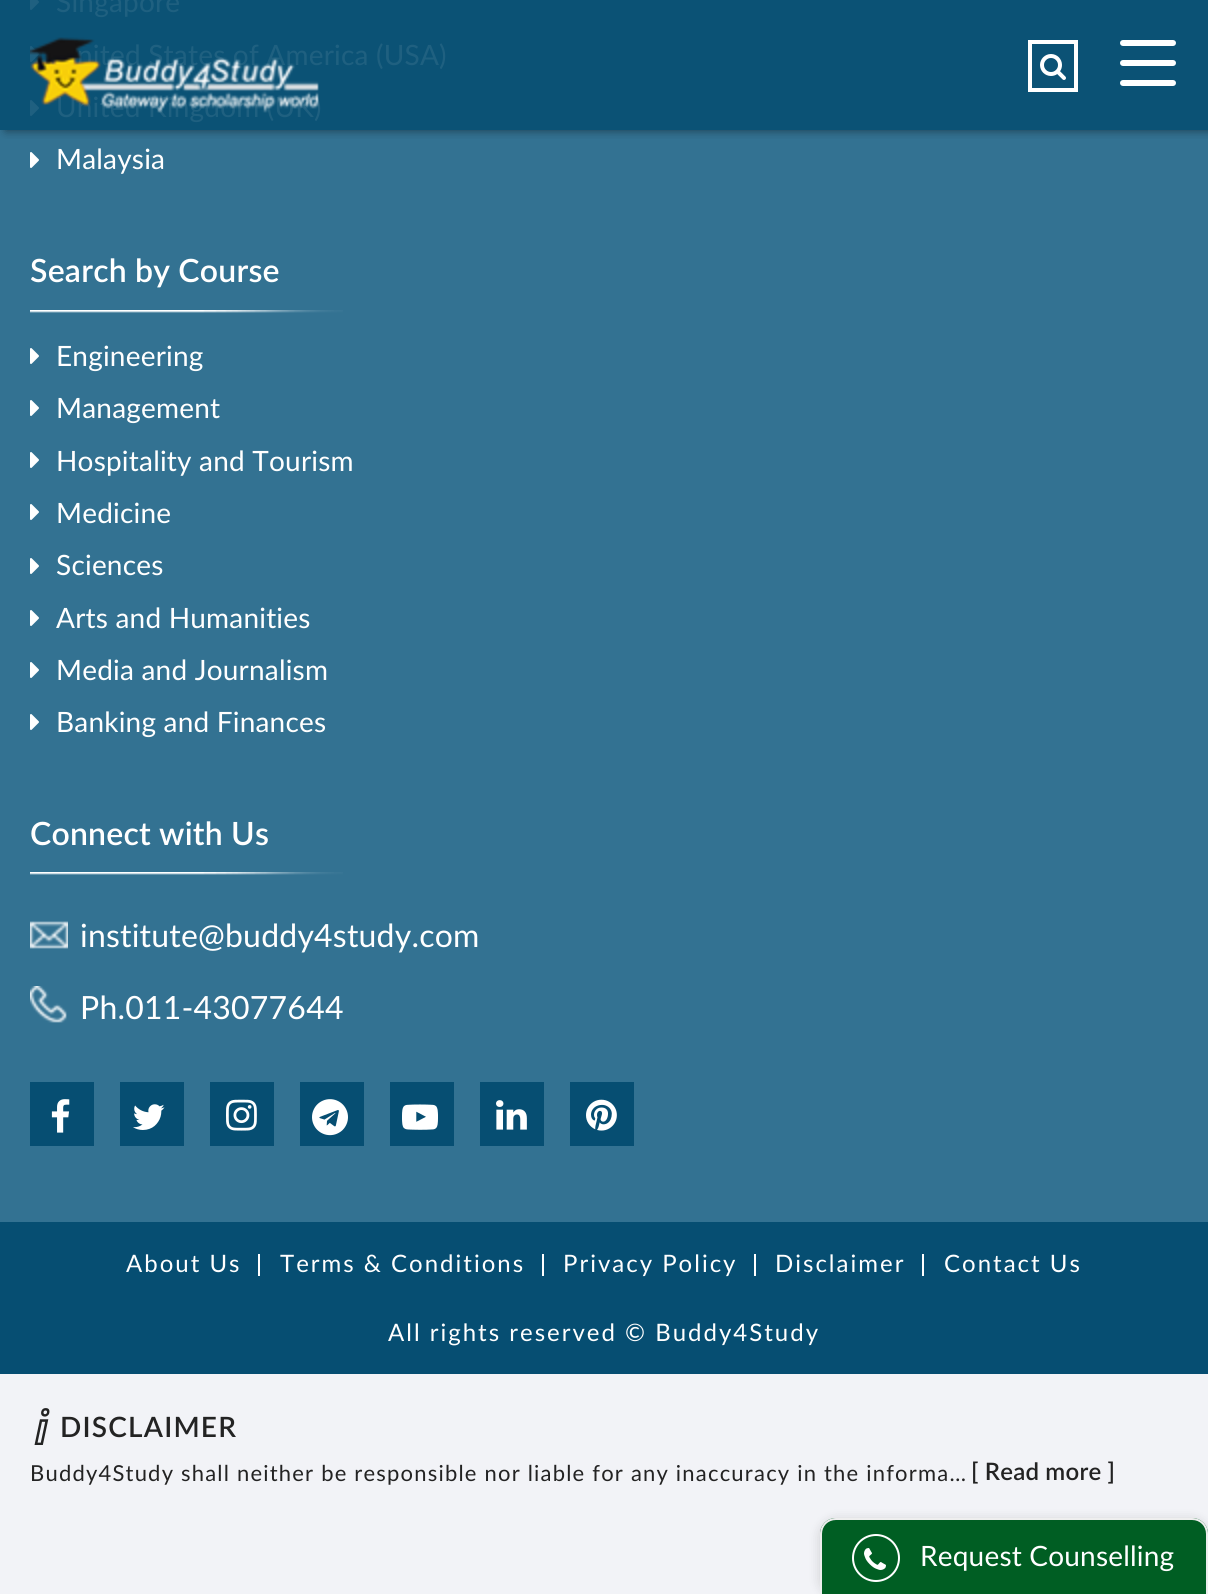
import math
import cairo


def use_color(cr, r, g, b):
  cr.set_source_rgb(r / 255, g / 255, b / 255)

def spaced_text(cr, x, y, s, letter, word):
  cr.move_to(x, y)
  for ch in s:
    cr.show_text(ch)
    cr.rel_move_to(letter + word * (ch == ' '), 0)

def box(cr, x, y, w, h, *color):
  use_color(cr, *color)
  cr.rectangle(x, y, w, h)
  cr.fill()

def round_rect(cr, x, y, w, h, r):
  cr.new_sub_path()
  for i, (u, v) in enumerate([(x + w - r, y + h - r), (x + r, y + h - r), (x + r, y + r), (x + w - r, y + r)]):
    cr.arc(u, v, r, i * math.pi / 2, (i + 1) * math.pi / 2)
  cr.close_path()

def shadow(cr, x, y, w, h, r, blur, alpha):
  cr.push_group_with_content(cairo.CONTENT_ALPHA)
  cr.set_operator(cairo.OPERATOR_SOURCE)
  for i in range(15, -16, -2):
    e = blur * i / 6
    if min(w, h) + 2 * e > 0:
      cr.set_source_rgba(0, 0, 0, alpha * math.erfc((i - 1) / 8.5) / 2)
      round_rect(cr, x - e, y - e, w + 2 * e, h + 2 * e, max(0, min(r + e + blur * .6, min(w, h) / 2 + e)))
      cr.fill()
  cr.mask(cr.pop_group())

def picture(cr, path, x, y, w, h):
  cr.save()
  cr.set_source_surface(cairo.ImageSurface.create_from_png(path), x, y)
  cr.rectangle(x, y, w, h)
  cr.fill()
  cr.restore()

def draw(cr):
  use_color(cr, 51, 114, 146)
  cr.paint()
  box(cr, 0, 0, 1208, 130, 11, 82, 117)
  picture(cr, "img_03.png", 30, 0, 9, 10)
  picture(cr, "img_04.png", 30, 46, 9, 16)
  picture(cr, "img_04.png", 30, 100, 9, 16)
  cr.save()
  cr.rectangle(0, 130, 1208, 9)
  cr.clip()
  use_color(cr, 0, 0, 0)
  shadow(cr, 6, 0, 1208, 130, 0, 5, 0.5)
  cr.restore()
  cr.rectangle(1030, 42, 46, 48)
  use_color(cr, 255, 255, 255)
  cr.set_line_width(4)
  cr.stroke()
  picture(cr, "img_02.png", 1040, 54, 26, 26)
  round_rect(cr, 1120, 60, 56, 6, 3)
  cr.fill()
  round_rect(cr, 1120, 40, 56, 6, 3)
  cr.fill()
  round_rect(cr, 1120, 80, 56, 6, 3)
  cr.fill()
  picture(cr, "img_05.png", 30, 152, 9, 16)
  picture(cr, "img_06.png", 30, 310, 313, 3)
  picture(cr, "img_05.png", 30, 348, 9, 16)
  picture(cr, "img_05.png", 30, 400, 9, 16)
  picture(cr, "img_05.png", 30, 452, 9, 16)
  picture(cr, "img_05.png", 30, 504, 9, 16)
  picture(cr, "img_05.png", 30, 558, 9, 16)
  picture(cr, "img_05.png", 30, 610, 9, 16)
  picture(cr, "img_05.png", 30, 662, 9, 16)
  picture(cr, "img_05.png", 30, 714, 9, 16)
  picture(cr, "img_06.png", 30, 872, 313, 3)
  picture(cr, "img_07.png", 30, 921, 38, 28)
  picture(cr, "img_08.png", 30, 986, 37, 37)
  box(cr, 30, 1082, 64, 64, 6, 78, 114)
  picture(cr, "img_09.png", 51, 1099, 19, 34)
  box(cr, 120, 1082, 64, 64, 6, 78, 114)
  picture(cr, "img_10.png", 133, 1104, 32, 26)
  box(cr, 210, 1082, 64, 64, 6, 78, 114)
  picture(cr, "img_11.png", 226, 1099, 31, 32)
  box(cr, 300, 1082, 64, 64, 6, 78, 114)
  picture(cr, "img_12.png", 312, 1099, 36, 37)
  box(cr, 390, 1082, 64, 64, 6, 78, 114)
  picture(cr, "img_13.png", 402, 1104, 36, 26)
  box(cr, 480, 1082, 64, 64, 6, 78, 114)
  picture(cr, "img_14.png", 496, 1100, 31, 30)
  box(cr, 570, 1082, 64, 64, 6, 78, 114)
  picture(cr, "img_15.png", 586, 1099, 31, 32)
  box(cr, 0, 1222, 1208, 152, 6, 78, 114)
  box(cr, 258, 1254, 2, 22, 255, 255, 255)
  box(cr, 542, 1254, 2, 22, 255, 255, 255)
  box(cr, 754, 1254, 2, 22, 255, 255, 255)
  box(cr, 922, 1254, 2, 22, 255, 255, 255)
  box(cr, 0, 1374, 1208, 220, 242, 243, 247)
  use_color(cr, 0, 0, 0)
  shadow(cr, 820, 1520, 388, 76, 16, 6, 0.15)
  use_color(cr, 0, 94, 35)
  cr.new_path()
  cr.move_to(836, 1518)
  cr.line_to(1192, 1518)
  cr.curve_to(1201, 1518, 1208, 1525, 1208, 1534)
  cr.line_to(1208, 1594)
  cr.line_to(820, 1594)
  cr.line_to(820, 1534)
  cr.curve_to(820, 1525, 827, 1518, 836, 1518)
  cr.close_path()
  cr.fill()
  use_color(cr, 238, 238, 238)
  cr.set_fill_rule(cairo.FILL_RULE_EVEN_ODD)
  cr.new_path()
  cr.move_to(836, 1518)
  cr.line_to(1192, 1518)
  cr.curve_to(1201, 1518, 1208, 1525, 1208, 1534)
  cr.line_to(1208, 1594)
  cr.line_to(820, 1594)
  cr.line_to(820, 1534)
  cr.curve_to(820, 1525, 827, 1518, 836, 1518)
  cr.close_path()
  cr.move_to(836, 1520)
  cr.line_to(1192, 1520)
  cr.curve_to(1200, 1520, 1206, 1526, 1206, 1534)
  cr.line_to(1206, 1594)
  cr.line_to(822, 1594)
  cr.line_to(822, 1534)
  cr.curve_to(822, 1526, 828, 1520, 836, 1520)
  cr.close_path()
  cr.fill()
  cr.arc(876, 1558, 23, 0, 2 * math.pi)
  use_color(cr, 255, 255, 255)
  cr.set_line_width(2)
  cr.stroke()
  picture(cr, "img_16.png", 864, 1548, 22, 22)
  cr.select_font_face("Lato")
  cr.set_font_size(28)
  use_color(cr, 31, 96, 128)
  spaced_text(cr, 56, 12, "Singapore", 0.2, 0)
  spaced_text(cr, 77, 65, "nited States of America (USA)", 0.2, 0)
  spaced_text(cr, 56, 117, "United Kingdom (UK)", 0.2, 0)
  picture(cr, "img_01.png", 30, 37, 289, 76)
  use_color(cr, 255, 255, 255)
  spaced_text(cr, 56, 169, "Malaysia", 0.2, 0)
  cr.select_font_face("Lato SemiBold")
  cr.set_font_size(32)
  spaced_text(cr, 30, 282, "Search by Course", 0.2, 0)
  cr.select_font_face("Lato")
  cr.set_font_size(28)
  spaced_text(cr, 56, 366, "Engineering", 0.2, 0)
  spaced_text(cr, 56, 418, "Management", 0.2, 0)
  spaced_text(cr, 56, 471, "Hospitality and Tourism", 0.2, 0)
  spaced_text(cr, 56, 523, "Medicine", 0.2, 0)
  spaced_text(cr, 56, 575, "Sciences", 0.2, 0)
  spaced_text(cr, 56, 628, "Arts and Humanities", 0.2, 0)
  spaced_text(cr, 56, 680, "Media and Journalism", 0.2, 0)
  spaced_text(cr, 56, 732, "Banking and Finances", 0.2, 0)
  cr.select_font_face("Lato SemiBold")
  cr.set_font_size(32)
  spaced_text(cr, 30, 845, "Connect with Us", 0.2, 0)
  cr.select_font_face("Lato")
  spaced_text(cr, 80, 947, "institute@buddy4study.com", 0.2, 0)
  spaced_text(cr, 80, 1019, "Ph.011-43077644", 0.2, 0)
  cr.set_font_size(24)
  spaced_text(cr, 126, 1272, "About Us", 2, 0)
  spaced_text(cr, 280, 1272, "Terms & Conditions", 2, 0)
  spaced_text(cr, 563, 1272, "Privacy Policy", 2, 0)
  spaced_text(cr, 775, 1272, "Disclaimer", 2, 0)
  spaced_text(cr, 944, 1272, "Contact Us", 2, 0)
  spaced_text(cr, 388, 1341, "All rights reserved © Buddy4Study", 2, 0)
  cr.select_font_face("Noto Sans SemiBold")
  cr.set_font_size(48)
  use_color(cr, 35, 35, 35)
  spaced_text(cr, 33, 1445, "ⅈ", 1.2, 0)
  cr.select_font_face("Lato SemiBold")
  cr.set_font_size(28)
  spaced_text(cr, 60, 1437, "DISCLAIMER", 1.2, 0)
  cr.select_font_face("Lato")
  cr.set_font_size(22)
  spaced_text(cr, 30, 1481, "Buddy4Study shall neither be responsible nor liable for any inaccuracy in the informa…", 1.2, 0)
  cr.select_font_face("Lato SemiBold")
  cr.set_font_size(24)
  spaced_text(cr, 971, 1480, "[ Read more ]", 0.2, 0)
  cr.select_font_face("Lato")
  cr.set_font_size(28)
  use_color(cr, 255, 255, 255)
  spaced_text(cr, 920, 1566, "Request Counselling", 0.2, 0)


surface = cairo.ImageSurface(cairo.FORMAT_RGB24, 1208, 1594)
cr = cairo.Context(surface)
options = cairo.FontOptions()
options.set_hint_metrics(cairo.HINT_METRICS_OFF)
options.set_hint_style(cairo.HINT_STYLE_NONE)
cr.set_font_options(options)
cr.set_miter_limit(4)
draw(cr)
surface.write_to_png("out.png")
